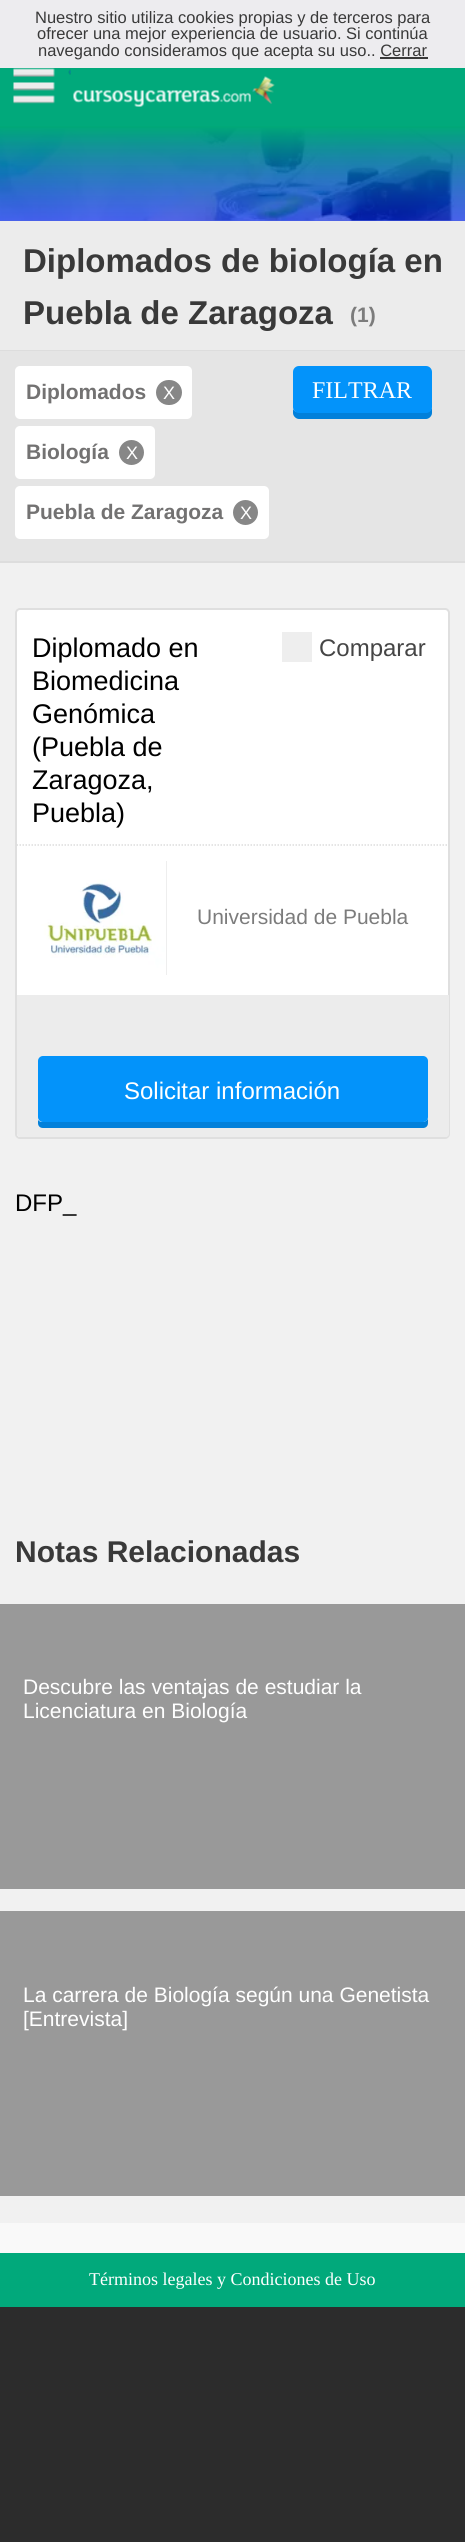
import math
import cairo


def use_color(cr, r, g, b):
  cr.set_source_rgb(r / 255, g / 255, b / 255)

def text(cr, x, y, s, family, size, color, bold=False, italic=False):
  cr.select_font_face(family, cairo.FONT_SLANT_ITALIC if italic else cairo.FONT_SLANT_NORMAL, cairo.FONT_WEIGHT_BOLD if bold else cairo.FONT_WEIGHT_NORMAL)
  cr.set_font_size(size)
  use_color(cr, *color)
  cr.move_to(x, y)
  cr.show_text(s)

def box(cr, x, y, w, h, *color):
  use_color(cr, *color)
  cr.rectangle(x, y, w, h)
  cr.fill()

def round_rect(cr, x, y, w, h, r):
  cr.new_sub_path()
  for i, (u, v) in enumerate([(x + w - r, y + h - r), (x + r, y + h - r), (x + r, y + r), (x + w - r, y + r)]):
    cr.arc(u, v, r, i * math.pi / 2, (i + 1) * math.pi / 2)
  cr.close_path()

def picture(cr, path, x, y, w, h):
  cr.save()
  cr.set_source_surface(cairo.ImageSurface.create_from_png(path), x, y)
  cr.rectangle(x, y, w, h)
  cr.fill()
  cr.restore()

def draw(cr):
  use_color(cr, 44, 44, 44)
  cr.paint()
  box(cr, 0, 0, 465, 68, 237, 236, 239)
  box(cr, 380, 57, 48, 2, 57, 57, 57)
  box(cr, 0, 68, 465, 58, 1, 169, 123)
  picture(cr, "img_01.png", 13, 68, 58, 36)
  picture(cr, "img_02.png", 73, 76, 202, 31)
  box(cr, 0, 220, 465, 130, 236, 236, 236)
  picture(cr, "img_03.png", 0, 128, 465, 93)
  gradient = cairo.LinearGradient(233, 126, 233, 243)
  gradient.add_color_stop_rgba(0, 0.004, 0.663, 0.471, 1)
  gradient.add_color_stop_rgba(1, 0.02, 0, 1, 0.6)
  cr.set_source(gradient)
  cr.rectangle(0, 126, 465, 95)
  cr.fill()
  box(cr, 0, 2223, 465, 30, 249, 249, 249)
  box(cr, 0, 350, 465, 1, 221, 221, 221)
  box(cr, 0, 351, 465, 210, 229, 229, 229)
  box(cr, 0, 561, 465, 2, 221, 221, 221)
  use_color(cr, 255, 255, 255)
  round_rect(cr, 15, 366, 177, 53, 5)
  cr.fill()
  use_color(cr, 135, 135, 135)
  round_rect(cr, 156, 380, 26, 25, 12.5)
  cr.fill()
  use_color(cr, 255, 255, 255)
  round_rect(cr, 15, 426, 140, 53, 5)
  cr.fill()
  use_color(cr, 135, 135, 135)
  cr.arc(131.5, 452.5, 12.5, 0, 2 * math.pi)
  cr.fill()
  use_color(cr, 255, 255, 255)
  round_rect(cr, 15, 486, 254, 53, 5)
  cr.fill()
  use_color(cr, 135, 135, 135)
  cr.arc(245.5, 512.5, 12.5, 0, 2 * math.pi)
  cr.fill()
  use_color(cr, 2, 128, 218)
  cr.new_path()
  cr.move_to(293, 409)
  cr.line_to(293, 413)
  cr.curve_to(293, 416, 296, 419, 299, 419)
  cr.line_to(426, 419)
  cr.curve_to(429, 419, 432, 416, 432, 413)
  cr.line_to(432, 406)
  cr.curve_to(432, 410, 429, 412, 426, 412)
  cr.line_to(298, 412)
  cr.curve_to(296, 412, 294, 411, 293, 409)
  cr.close_path()
  cr.fill()
  use_color(cr, 3, 147, 250)
  round_rect(cr, 293, 366, 139, 47, 6)
  cr.fill()
  box(cr, 0, 563, 465, 1660, 241, 241, 241)
  use_color(cr, 255, 255, 255)
  round_rect(cr, 16, 609, 433, 529, 4)
  cr.fill_preserve()
  use_color(cr, 223, 223, 223)
  cr.stroke()
  cr.new_path()
  cr.move_to(16.5, 845)
  cr.line_to(448.5, 845)
  use_color(cr, 221, 221, 221)
  cr.set_line_width(1.5)
  cr.set_dash([1.5, 1.5])
  cr.stroke()
  box(cr, 282, 632, 30, 30, 238, 238, 238)
  box(cr, 166, 861, 1, 114, 221, 221, 221)
  picture(cr, "img_04.png", 32, 861, 135, 114)
  use_color(cr, 236, 236, 236)
  cr.new_path()
  cr.move_to(17, 995)
  cr.line_to(449, 995)
  cr.line_to(449, 1134)
  cr.curve_to(449, 1135.5, 447.5, 1137, 446, 1137)
  cr.line_to(20, 1137)
  cr.curve_to(18.5, 1137, 17, 1135.5, 17, 1134)
  cr.close_path()
  cr.fill()
  use_color(cr, 2, 128, 218)
  cr.new_path()
  cr.move_to(38, 1120)
  cr.line_to(38, 1123)
  cr.curve_to(38, 1126, 40, 1128, 43, 1128)
  cr.line_to(423, 1128)
  cr.curve_to(426, 1128, 428, 1126, 428, 1123)
  cr.line_to(428, 1067)
  cr.line_to(428, 1065)
  cr.line_to(428, 1118)
  cr.curve_to(428, 1120, 425, 1122, 423, 1122)
  cr.line_to(42, 1122)
  cr.curve_to(40, 1122, 39, 1121, 38, 1120)
  cr.close_path()
  cr.fill()
  use_color(cr, 3, 147, 250)
  round_rect(cr, 38, 1056, 390, 66, 5)
  cr.fill()
  box(cr, 0, 1604, 465, 285, 153, 153, 153)
  box(cr, 0, 1911, 465, 285, 153, 153, 153)
  box(cr, 0, 2253, 465, 54, 1, 169, 123)
  text(cr, 35, 23, "Nuestro sitio utiliza cookies propias y de terceros para", "Liberation Sans", 16.5, (57, 57, 57))
  text(cr, 37, 39, "ofrecer una mejor experiencia de usuario. Si continúa", "Liberation Sans", 16.5, (57, 57, 57))
  text(cr, 38, 56, "navegando consideramos que acepta su uso.. Cerrar", "Liberation Sans", 16.5, (57, 57, 57))
  text(cr, 23, 272, "Diplomados de biología en", "Liberation Sans", 33, (57, 57, 57), bold=True)
  text(cr, 23, 324, "Puebla de Zaragoza", "Liberation Sans", 33, (57, 57, 57), bold=True)
  text(cr, 350, 322, "(1)", "Liberation Sans", 21, (124, 124, 124), bold=True)
  text(cr, 26, 399, "Diplomados", "Liberation Sans", 21, (115, 114, 114), bold=True)
  text(cr, 163, 399, "X", "Liberation Sans", 18, (255, 255, 255))
  text(cr, 26, 459, "Biología", "Liberation Sans", 21, (115, 114, 114), bold=True)
  text(cr, 126, 459, "X", "Liberation Sans", 18, (255, 255, 255))
  text(cr, 26, 519, "Puebla de Zaragoza", "Liberation Sans", 21, (115, 114, 114), bold=True)
  text(cr, 240, 519, "X", "Liberation Sans", 18, (255, 255, 255))
  text(cr, 312, 398, "FILTRAR", "Liberation Serif", 24, (255, 255, 255))
  text(cr, 32, 657, "Diplomado en", "Liberation Sans", 27, (0, 0, 0))
  text(cr, 32, 690, "Biomedicina", "Liberation Sans", 27, (0, 0, 0))
  text(cr, 32, 723, "Genómica", "Liberation Sans", 27, (0, 0, 0))
  text(cr, 32, 756, "(Puebla de", "Liberation Sans", 27, (0, 0, 0))
  text(cr, 32, 789, "Zaragoza,", "Liberation Sans", 27, (0, 0, 0))
  text(cr, 32, 822, "Puebla)", "Liberation Sans", 27, (0, 0, 0))
  text(cr, 319, 656, "Comparar", "Liberation Sans", 24, (69, 69, 69))
  text(cr, 197, 924, "Universidad de Puebla", "Liberation Sans", 21, (124, 124, 124))
  text(cr, 124, 1099, "Solicitar información", "Liberation Sans", 24, (255, 255, 255))
  text(cr, 15, 1211, "DFP_", "Liberation Sans", 24, (0, 0, 0))
  text(cr, 15, 1562, "Notas Relacionadas", "Liberation Sans", 30, (57, 57, 57), bold=True)
  text(cr, 23, 1694, "Descubre las ventajas de estudiar la", "Liberation Sans", 21, (255, 255, 255))
  text(cr, 23, 1718, "Licenciatura en Biología", "Liberation Sans", 21, (255, 255, 255))
  text(cr, 23, 2002, "La carrera de Biología según una Genetista", "Liberation Sans", 21, (255, 255, 255))
  text(cr, 23, 2026, "[Entrevista]", "Liberation Sans", 21, (255, 255, 255))
  text(cr, 89, 2285, "Términos legales y Condiciones de Uso", "Liberation Serif", 18, (255, 255, 255))


surface = cairo.ImageSurface(cairo.FORMAT_RGB24, 465, 2542)
cr = cairo.Context(surface)
options = cairo.FontOptions()
options.set_hint_metrics(cairo.HINT_METRICS_OFF)
options.set_hint_style(cairo.HINT_STYLE_NONE)
cr.set_font_options(options)
cr.set_miter_limit(4)
draw(cr)
surface.write_to_png("out.png")
